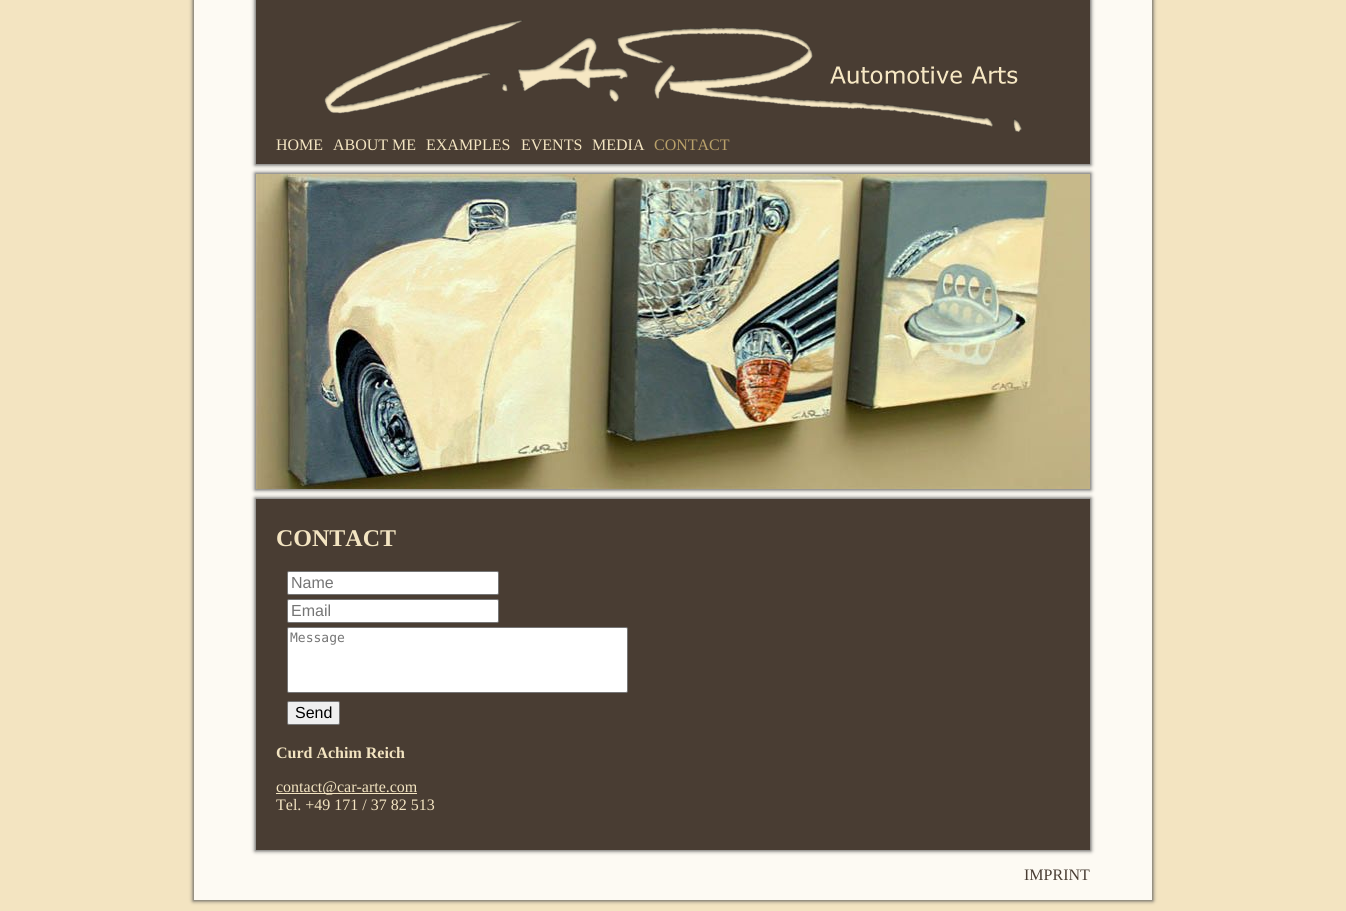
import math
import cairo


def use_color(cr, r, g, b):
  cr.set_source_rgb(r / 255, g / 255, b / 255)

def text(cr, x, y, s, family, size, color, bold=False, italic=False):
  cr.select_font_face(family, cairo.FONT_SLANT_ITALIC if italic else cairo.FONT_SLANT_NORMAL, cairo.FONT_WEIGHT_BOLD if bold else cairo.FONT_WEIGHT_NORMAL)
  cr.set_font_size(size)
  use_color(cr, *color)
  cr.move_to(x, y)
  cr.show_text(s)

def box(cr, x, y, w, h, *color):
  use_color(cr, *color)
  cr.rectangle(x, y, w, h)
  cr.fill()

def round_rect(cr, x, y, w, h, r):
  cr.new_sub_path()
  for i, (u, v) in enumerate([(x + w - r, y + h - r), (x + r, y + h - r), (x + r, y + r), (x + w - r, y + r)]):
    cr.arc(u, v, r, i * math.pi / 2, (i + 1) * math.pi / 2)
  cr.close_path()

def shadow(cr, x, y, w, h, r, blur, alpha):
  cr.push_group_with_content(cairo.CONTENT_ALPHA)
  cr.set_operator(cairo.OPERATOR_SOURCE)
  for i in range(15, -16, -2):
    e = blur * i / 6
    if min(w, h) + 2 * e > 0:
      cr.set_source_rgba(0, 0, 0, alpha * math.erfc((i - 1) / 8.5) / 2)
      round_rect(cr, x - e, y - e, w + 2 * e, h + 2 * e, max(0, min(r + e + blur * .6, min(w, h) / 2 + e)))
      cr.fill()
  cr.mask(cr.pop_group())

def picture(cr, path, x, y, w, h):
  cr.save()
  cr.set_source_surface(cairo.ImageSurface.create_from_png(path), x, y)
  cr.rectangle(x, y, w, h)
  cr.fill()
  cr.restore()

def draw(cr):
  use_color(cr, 243, 228, 193)
  cr.paint()
  use_color(cr, 85, 85, 85)
  shadow(cr, 193, -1, 960, 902, 0, 2, 1)
  box(cr, 194, 0, 958, 900, 253, 250, 243)
  use_color(cr, 85, 85, 85)
  shadow(cr, 255, -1, 836, 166, 0, 2, 1)
  box(cr, 256, 0, 834, 164, 73, 61, 51)
  picture(cr, "img_01.png", 324, 20, 698, 112)
  use_color(cr, 85, 85, 85)
  shadow(cr, 255, 173, 836, 317, 0, 2, 1)
  picture(cr, "img_02.png", 256, 174, 834, 315)
  shadow(cr, 255, 498, 836, 353, 0, 2, 1)
  box(cr, 256, 499, 834, 351, 73, 61, 51)
  use_color(cr, 255, 255, 255)
  round_rect(cr, 287.5, 571.5, 211, 23, 1.5)
  cr.fill_preserve()
  use_color(cr, 118, 118, 118)
  cr.set_line_width(1)
  cr.stroke()
  use_color(cr, 255, 255, 255)
  round_rect(cr, 287.5, 599.5, 211, 23, 1.5)
  cr.fill_preserve()
  use_color(cr, 118, 118, 118)
  cr.stroke()
  use_color(cr, 255, 255, 255)
  round_rect(cr, 287.5, 627.5, 340, 65, 1.5)
  cr.fill_preserve()
  use_color(cr, 118, 118, 118)
  cr.stroke()
  use_color(cr, 239, 239, 239)
  round_rect(cr, 287.5, 701.5, 52, 23, 1.5)
  cr.fill_preserve()
  use_color(cr, 118, 118, 118)
  cr.stroke()
  box(cr, 276, 793, 141, 1, 243, 228, 193)
  text(cr, 276, 150, "HOME", "Liberation Serif", 16, (243, 228, 193))
  text(cr, 333, 150, "ABOUT ME", "Liberation Serif", 16, (243, 228, 193))
  text(cr, 426, 150, "EXAMPLES", "Liberation Serif", 16, (243, 228, 193))
  text(cr, 521, 150, "EVENTS", "Liberation Serif", 16, (243, 228, 193))
  text(cr, 592, 150, "MEDIA", "Liberation Serif", 16, (243, 228, 193))
  text(cr, 654, 150, "CONTACT", "Liberation Serif", 16, (185, 161, 106))
  text(cr, 276, 546, "CONTACT", "Liberation Serif", 24, (243, 228, 193), bold=True)
  text(cr, 291, 588, "Name", "Liberation Sans", 16, (117, 117, 117))
  text(cr, 291, 616, "Email", "Liberation Sans", 16, (117, 117, 117))
  text(cr, 290, 642, "Message", "DejaVu Sans Mono", 13, (117, 117, 117))
  text(cr, 295, 718, "Send", "Liberation Sans", 16, (0, 0, 0))
  text(cr, 276, 758, "Curd Achim Reich", "Liberation Serif", 16, (243, 228, 193), bold=True)
  text(cr, 276, 792, "contact@car-arte.com", "Liberation Serif", 16, (243, 228, 193))
  text(cr, 276, 810, "Tel. +49 171 / 37 82 513", "Liberation Serif", 16, (243, 228, 193))
  text(cr, 1024, 880, "IMPRINT", "Liberation Serif", 16, (73, 61, 51))


surface = cairo.ImageSurface(cairo.FORMAT_RGB24, 1346, 911)
cr = cairo.Context(surface)
options = cairo.FontOptions()
options.set_hint_metrics(cairo.HINT_METRICS_OFF)
options.set_hint_style(cairo.HINT_STYLE_NONE)
cr.set_font_options(options)
cr.set_miter_limit(4)
draw(cr)
surface.write_to_png("out.png")
